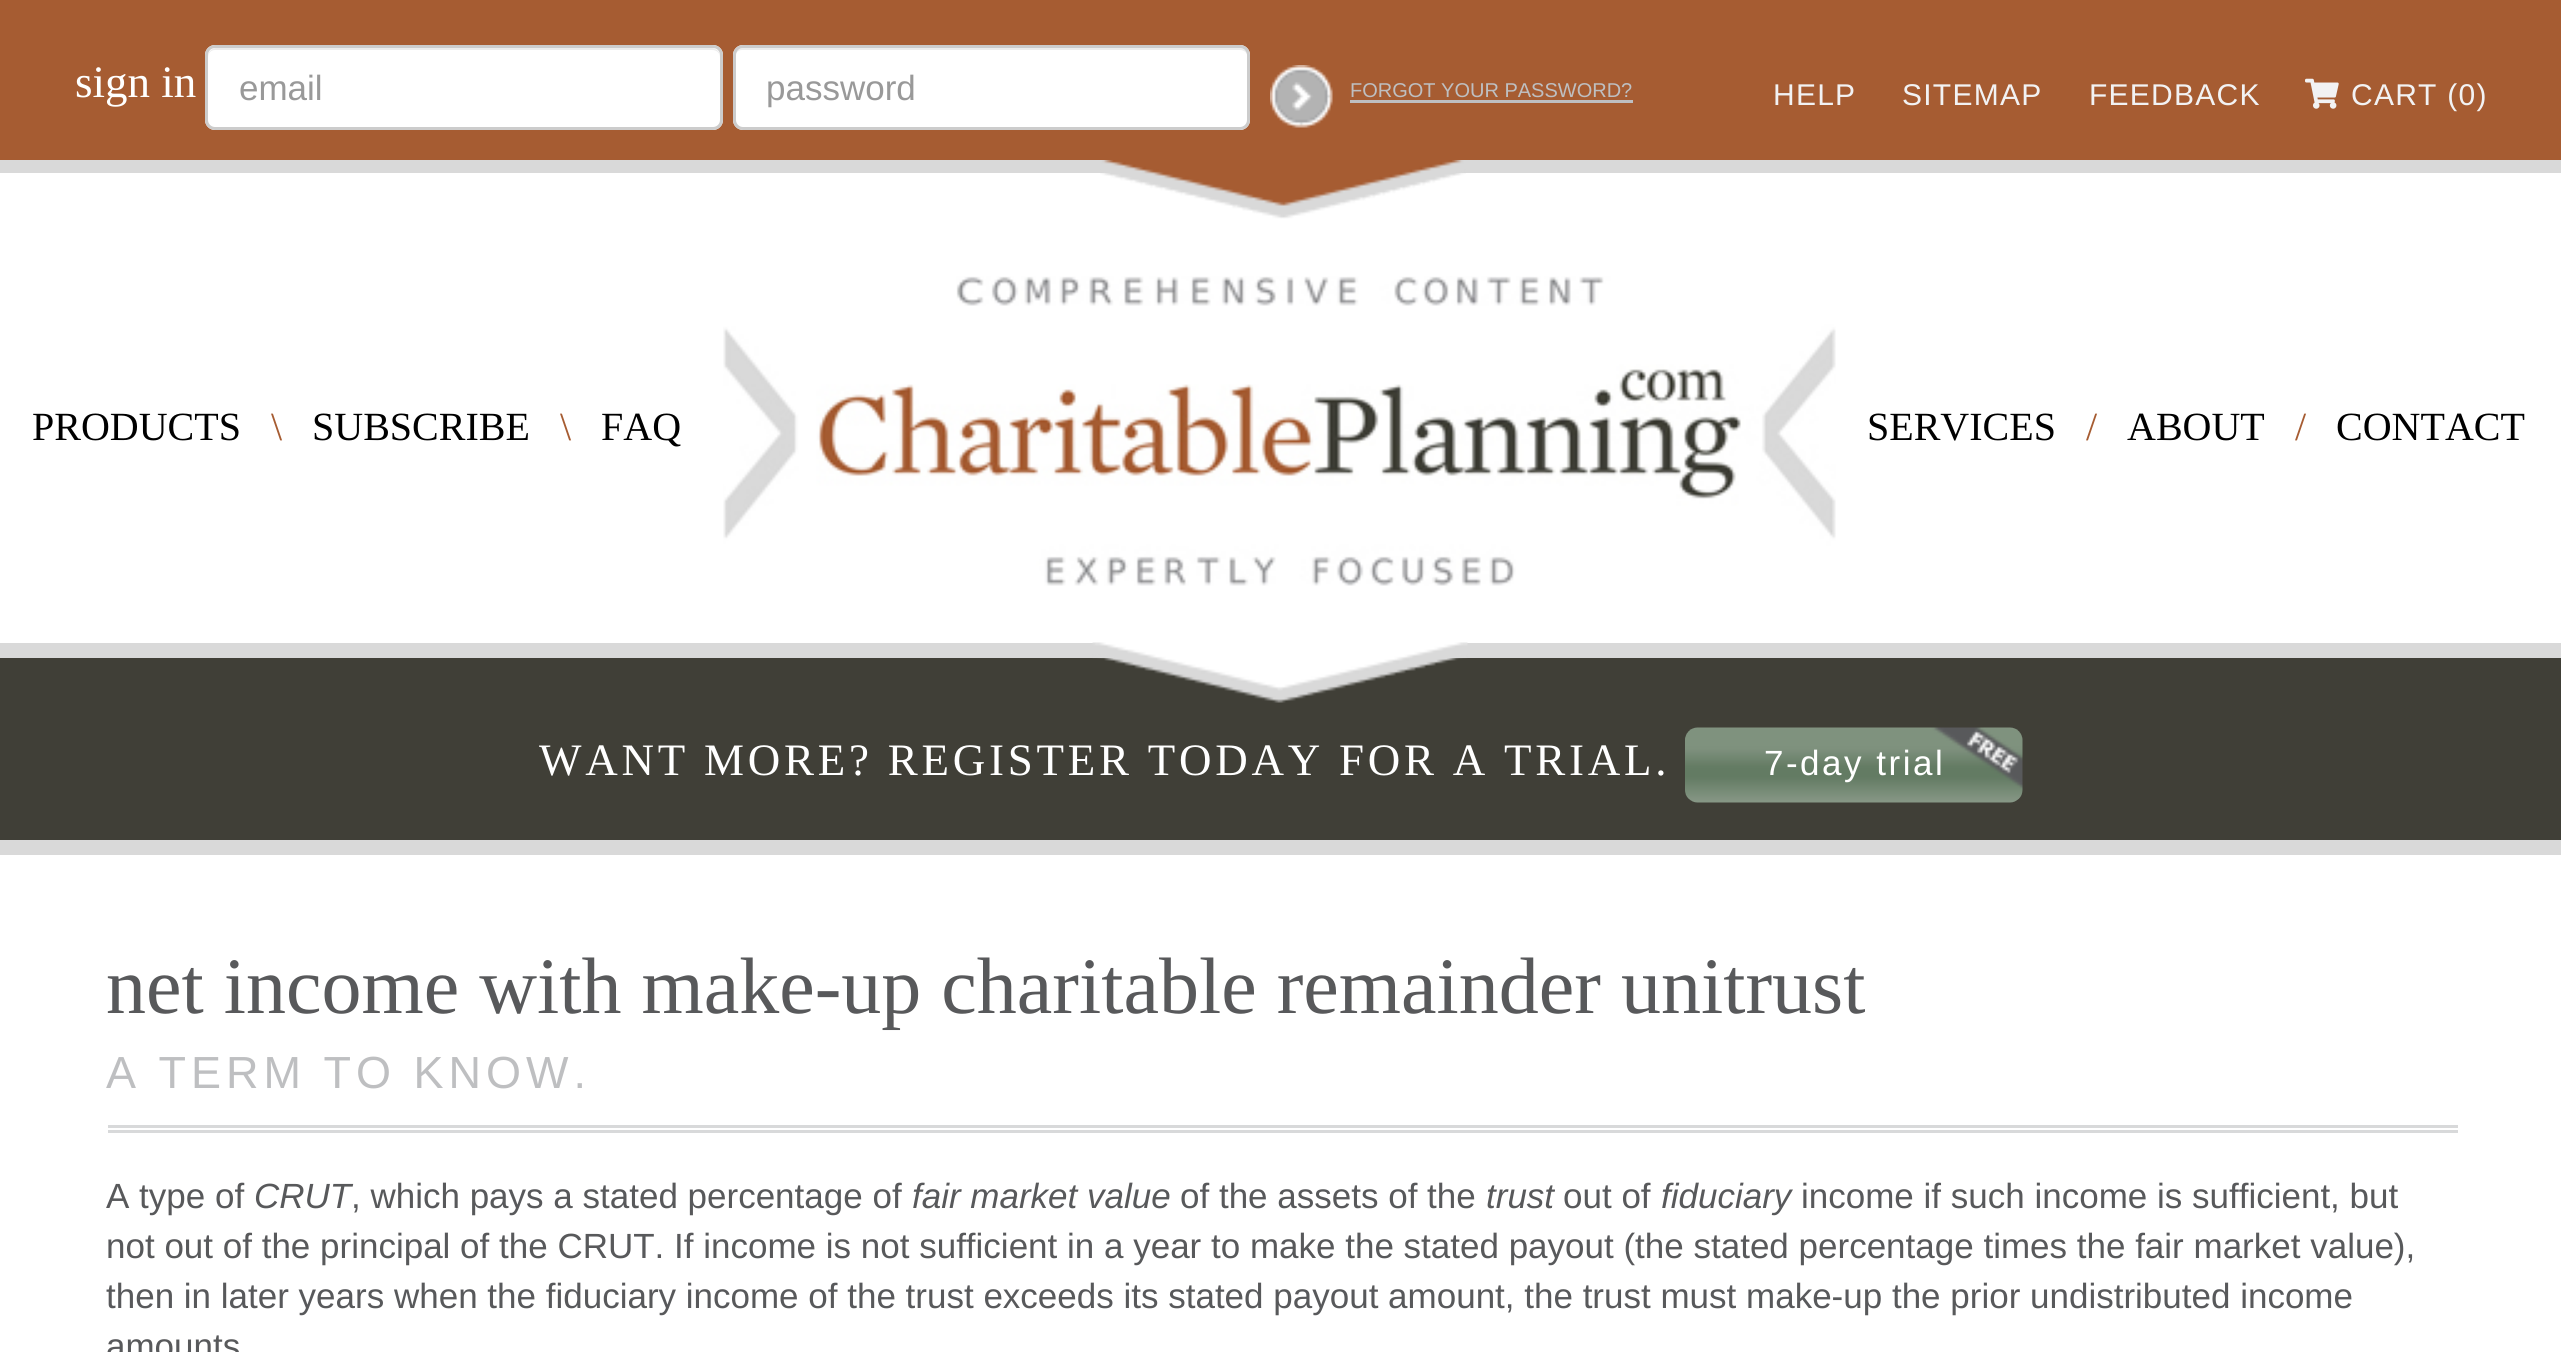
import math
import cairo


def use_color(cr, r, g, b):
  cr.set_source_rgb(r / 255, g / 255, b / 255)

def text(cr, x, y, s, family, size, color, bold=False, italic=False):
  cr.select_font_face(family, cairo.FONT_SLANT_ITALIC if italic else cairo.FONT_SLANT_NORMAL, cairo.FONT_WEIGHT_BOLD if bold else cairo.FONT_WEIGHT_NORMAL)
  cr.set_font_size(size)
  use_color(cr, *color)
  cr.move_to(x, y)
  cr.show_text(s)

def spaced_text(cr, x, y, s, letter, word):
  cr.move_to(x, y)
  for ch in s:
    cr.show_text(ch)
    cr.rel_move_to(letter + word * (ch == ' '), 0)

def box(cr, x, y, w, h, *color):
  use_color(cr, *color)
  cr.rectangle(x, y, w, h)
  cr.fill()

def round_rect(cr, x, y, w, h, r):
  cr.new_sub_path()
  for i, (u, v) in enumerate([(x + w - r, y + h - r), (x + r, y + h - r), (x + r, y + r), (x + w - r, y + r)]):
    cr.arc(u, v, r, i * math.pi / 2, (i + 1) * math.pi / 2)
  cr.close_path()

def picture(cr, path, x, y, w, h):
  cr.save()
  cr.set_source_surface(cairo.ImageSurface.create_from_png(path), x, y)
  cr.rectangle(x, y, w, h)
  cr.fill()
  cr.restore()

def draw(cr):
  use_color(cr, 255, 255, 255)
  cr.paint()
  box(cr, 0, 0, 2561, 160, 166, 92, 50)
  box(cr, 0, 160, 2561, 13, 217, 217, 217)
  use_color(cr, 255, 255, 255)
  round_rect(cr, 205, 45, 518, 85, 10)
  cr.fill()
  use_color(cr, 236, 236, 236)
  cr.new_path()
  cr.move_to(215, 50)
  cr.line_to(712, 50)
  cr.curve_to(717, 50, 720, 53, 720, 58)
  cr.line_to(720, 56)
  cr.curve_to(720, 52, 716, 48, 712, 48)
  cr.line_to(216, 48)
  cr.curve_to(212, 48, 208, 52, 208, 56)
  cr.line_to(208, 58)
  cr.curve_to(208, 53, 211, 50, 215, 50)
  cr.close_path()
  cr.fill()
  round_rect(cr, 206.5, 46.5, 515, 82, 8.5)
  use_color(cr, 204, 204, 204)
  cr.set_line_width(3)
  cr.stroke()
  use_color(cr, 255, 255, 255)
  round_rect(cr, 733, 45, 517, 85, 10)
  cr.fill()
  use_color(cr, 236, 236, 236)
  cr.new_path()
  cr.move_to(742, 50)
  cr.line_to(1240, 50)
  cr.curve_to(1244, 50, 1248, 53, 1248, 58)
  cr.line_to(1248, 56)
  cr.curve_to(1248, 52, 1244, 48, 1240, 48)
  cr.line_to(743, 48)
  cr.curve_to(739, 48, 735, 52, 735, 56)
  cr.line_to(735, 58)
  cr.curve_to(735, 53, 738, 50, 742, 50)
  cr.close_path()
  cr.fill()
  round_rect(cr, 734.5, 46.5, 514, 82, 8.5)
  use_color(cr, 204, 204, 204)
  cr.stroke()
  picture(cr, "img_01.png", 1270, 65, 63, 63)
  box(cr, 1350, 100, 283, 3, 190, 191, 193)
  picture(cr, "img_02.png", 2305, 78, 34, 31)
  picture(cr, "img_03.png", 1100, 160, 366, 59)
  picture(cr, "img_04.png", 723, 276, 1113, 310)
  box(cr, 0, 658, 2561, 182, 64, 63, 55)
  box(cr, 0, 643, 2561, 15, 217, 217, 217)
  box(cr, 0, 840, 2561, 15, 217, 217, 217)
  picture(cr, "img_05.png", 1092, 642, 376, 61)
  picture(cr, "img_06.png", 1685, 727, 338, 76)
  box(cr, 108, 1125, 2350, 3, 216, 217, 218)
  box(cr, 108, 1130, 2350, 3, 216, 217, 218)
  text(cr, 75, 97, "sign in", "Liberation Serif", 45, (255, 255, 255))
  text(cr, 239, 100, "email", "Liberation Sans", 35, (153, 153, 153))
  text(cr, 766, 100, "password", "Liberation Sans", 35, (153, 153, 153))
  text(cr, 1350, 97, "FORGOT YOUR PASSWORD?", "Liberation Sans", 20, (190, 191, 193))
  cr.set_font_size(30)
  use_color(cr, 242, 242, 243)
  spaced_text(cr, 1773, 105, "HELP", 1.25, 0)
  spaced_text(cr, 1902, 105, "SITEMAP", 1.25, 0)
  spaced_text(cr, 2089, 105, "FEEDBACK", 1.25, 0)
  spaced_text(cr, 2351, 105, "CART (0)", 1.25, 0)
  text(cr, 32, 440, "PRODUCTS", "Liberation Serif", 40, (0, 0, 0))
  text(cr, 271, 440, "\\", "Liberation Serif", 40, (166, 92, 50))
  text(cr, 312, 440, "SUBSCRIBE", "Liberation Serif", 40, (0, 0, 0))
  text(cr, 560, 440, "\\", "Liberation Serif", 40, (166, 92, 50))
  text(cr, 601, 440, "FAQ", "Liberation Serif", 40, (0, 0, 0))
  text(cr, 1867, 440, "SERVICES", "Liberation Serif", 40, (0, 0, 0))
  text(cr, 2086, 440, "/", "Liberation Serif", 40, (166, 92, 50))
  text(cr, 2127, 440, "ABOUT", "Liberation Serif", 40, (0, 0, 0))
  text(cr, 2295, 440, "/", "Liberation Serif", 40, (166, 92, 50))
  text(cr, 2336, 440, "CONTACT", "Liberation Serif", 40, (0, 0, 0))
  cr.set_font_size(45)
  use_color(cr, 255, 255, 255)
  spaced_text(cr, 539, 775, "WANT MORE? REGISTER TODAY FOR A TRIAL.", 3.75, 0)
  cr.select_font_face("Liberation Sans")
  cr.set_font_size(35)
  spaced_text(cr, 1764, 775, "7-day trial", 2.5, 0)
  text(cr, 106, 1013, "net income with make-up charitable remainder unitrust", "Liberation Serif", 80, (88, 89, 91))
  cr.select_font_face("Liberation Sans")
  cr.set_font_size(45)
  use_color(cr, 190, 191, 193)
  spaced_text(cr, 106, 1088, "A TERM TO KNOW.", 5, 0)
  text(cr, 106, 1208, "A type of", "Liberation Sans", 35, (88, 89, 91))
  text(cr, 254, 1208, "CRUT", "Liberation Sans", 35, (88, 89, 91), italic=True)
  text(cr, 351, 1208, ", which pays a stated percentage of", "Liberation Sans", 35, (88, 89, 91))
  text(cr, 912, 1208, "fair market value", "Liberation Sans", 35, (88, 89, 91), italic=True)
  text(cr, 1180, 1208, "of the assets of the", "Liberation Sans", 35, (88, 89, 91))
  text(cr, 1486, 1208, "trust", "Liberation Sans", 35, (88, 89, 91), italic=True)
  text(cr, 1563, 1208, "out of", "Liberation Sans", 35, (88, 89, 91))
  text(cr, 1661, 1208, "fiduciary", "Liberation Sans", 35, (88, 89, 91), italic=True)
  text(cr, 1801, 1208, "income if such income is sufficient, but", "Liberation Sans", 35, (88, 89, 91))
  text(cr, 106, 1258, "not out of the principal of the CRUT. If income is not sufficient in a year to make the stated payout (the stated percentage times the fair market value),", "Liberation Sans", 35, (88, 89, 91))
  text(cr, 106, 1308, "then in later years when the fiduciary income of the trust exceeds its stated payout amount, the trust must make-up the prior undistributed income", "Liberation Sans", 35, (88, 89, 91))
  text(cr, 106, 1358, "amounts", "Liberation Sans", 35, (88, 89, 91))


surface = cairo.ImageSurface(cairo.FORMAT_RGB24, 2561, 1352)
cr = cairo.Context(surface)
options = cairo.FontOptions()
options.set_hint_metrics(cairo.HINT_METRICS_OFF)
options.set_hint_style(cairo.HINT_STYLE_NONE)
cr.set_font_options(options)
cr.set_miter_limit(4)
draw(cr)
surface.write_to_png("out.png")
